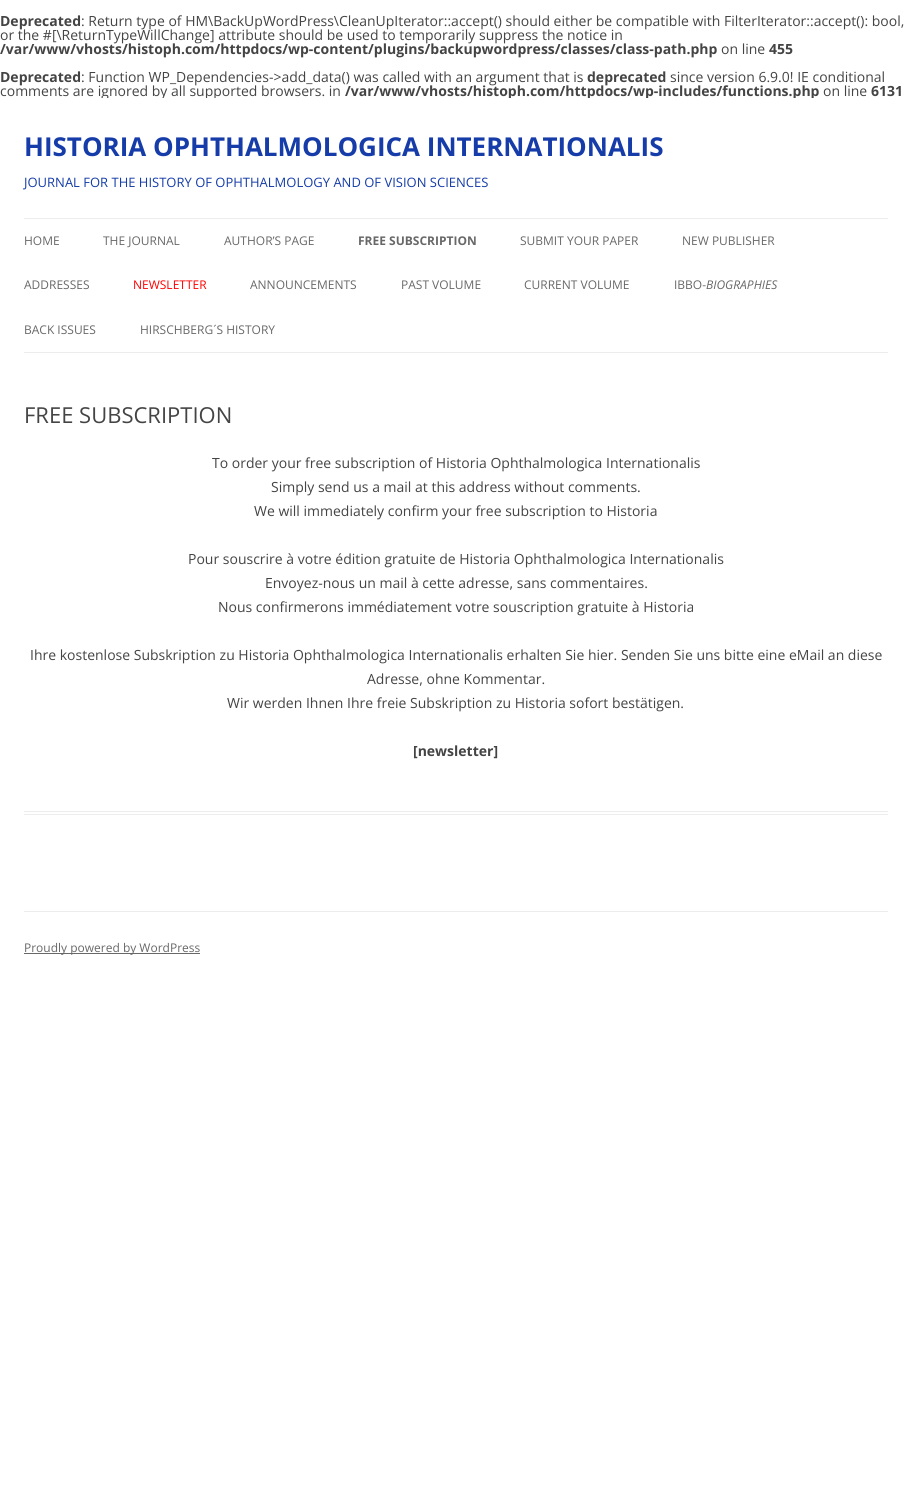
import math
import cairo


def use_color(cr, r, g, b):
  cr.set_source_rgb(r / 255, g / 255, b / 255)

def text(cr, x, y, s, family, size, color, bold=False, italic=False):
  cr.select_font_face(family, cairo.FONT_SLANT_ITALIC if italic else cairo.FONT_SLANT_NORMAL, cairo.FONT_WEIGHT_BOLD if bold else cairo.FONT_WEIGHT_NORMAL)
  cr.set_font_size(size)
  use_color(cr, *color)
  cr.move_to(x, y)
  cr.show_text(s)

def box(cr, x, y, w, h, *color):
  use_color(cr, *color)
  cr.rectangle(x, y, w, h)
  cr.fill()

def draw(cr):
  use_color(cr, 255, 255, 255)
  cr.paint()
  box(cr, 24, 218, 864, 1, 237, 237, 237)
  box(cr, 24, 352, 864, 1, 237, 237, 237)
  box(cr, 24, 811, 864, 1, 237, 237, 237)
  box(cr, 24, 814, 864, 1, 237, 237, 237)
  box(cr, 24, 911, 864, 1, 237, 237, 237)
  box(cr, 24, 953, 176, 1, 104, 104, 104)
  text(cr, 0, 26, "Deprecated", "Open Sans", 14, (68, 68, 68), bold=True)
  text(cr, 81, 26, ": Return type of HM\\BackUpWordPress\\CleanUpIterator::accept() should either be compatible with FilterIterator::accept(): bool,", "Open Sans", 14, (68, 68, 68))
  text(cr, 0, 40, "or the #[\\ReturnTypeWillChange] attribute should be used to temporarily suppress the notice in", "Open Sans", 14, (68, 68, 68))
  text(cr, 0, 54, "/var/www/vhosts/histoph.com/httpdocs/wp-content/plugins/backupwordpress/classes/class-path.php", "Open Sans", 14, (68, 68, 68), bold=True)
  text(cr, 721, 54, "on line", "Open Sans", 14, (68, 68, 68))
  text(cr, 769, 54, "455", "Open Sans", 14, (68, 68, 68), bold=True)
  text(cr, 0, 82, "Deprecated", "Open Sans", 14, (68, 68, 68), bold=True)
  text(cr, 81, 82, ": Function WP_Dependencies->add_data() was called with an argument that is", "Open Sans", 14, (68, 68, 68))
  text(cr, 587, 82, "deprecated", "Open Sans", 14, (68, 68, 68), bold=True)
  text(cr, 670, 82, "since version 6.9.0! IE conditional", "Open Sans", 14, (68, 68, 68))
  text(cr, 0, 96, "comments are ignored by all supported browsers. in", "Open Sans", 14, (68, 68, 68))
  text(cr, 345, 96, "/var/www/vhosts/histoph.com/httpdocs/wp-includes/functions.php", "Open Sans", 14, (68, 68, 68), bold=True)
  text(cr, 823, 96, "on line", "Open Sans", 14, (68, 68, 68))
  text(cr, 871, 96, "6131", "Open Sans", 14, (68, 68, 68), bold=True)
  box(cr, 101, 98, 713, 2, 255, 255, 255)
  text(cr, 24, 156, "HISTORIA OPHTHALMOLOGICA INTERNATIONALIS", "Open Sans", 26, (21, 60, 168), bold=True)
  text(cr, 24, 187, "JOURNAL FOR THE HISTORY OF OPHTHALMOLOGY AND OF VISION SCIENCES", "Open Sans", 13, (21, 60, 168))
  text(cr, 24, 245, "HOME", "Open Sans", 12, (104, 104, 104))
  text(cr, 103, 245, "THE JOURNAL", "Open Sans", 12, (104, 104, 104))
  text(cr, 224, 245, "AUTHOR’S PAGE", "Open Sans", 12, (104, 104, 104))
  text(cr, 358, 245, "FREE SUBSCRIPTION", "Open Sans", 12, (104, 104, 104), bold=True)
  text(cr, 520, 245, "SUBMIT YOUR PAPER", "Open Sans", 12, (104, 104, 104))
  text(cr, 682, 245, "NEW PUBLISHER", "Open Sans", 12, (104, 104, 104))
  text(cr, 24, 289, "ADDRESSES", "Open Sans", 12, (104, 104, 104))
  text(cr, 133, 289, "NEWSLETTER", "Open Sans", 12, (255, 0, 0))
  text(cr, 250, 289, "ANNOUNCEMENTS", "Open Sans", 12, (104, 104, 104))
  text(cr, 401, 289, "PAST VOLUME", "Open Sans", 12, (104, 104, 104))
  text(cr, 524, 289, "CURRENT VOLUME", "Open Sans", 12, (104, 104, 104))
  text(cr, 674, 289, "IBBO-", "Open Sans", 12, (104, 104, 104))
  text(cr, 706, 289, "BIOGRAPHIES", "Open Sans", 12, (104, 104, 104), italic=True)
  text(cr, 24, 334, "BACK ISSUES", "Open Sans", 12, (104, 104, 104))
  text(cr, 140, 334, "HIRSCHBERG´S HISTORY", "Open Sans", 12, (104, 104, 104))
  text(cr, 24, 423, "FREE SUBSCRIPTION", "Open Sans", 22, (68, 68, 68))
  text(cr, 212, 468, "To order your free subscription of Historia Ophthalmologica Internationalis", "Open Sans", 14, (68, 68, 68))
  text(cr, 271, 492, "Simply send us a mail at this address without comments.", "Open Sans", 14, (68, 68, 68))
  text(cr, 254, 516, "We will immediately confirm your free subscription to Historia", "Open Sans", 14, (68, 68, 68))
  text(cr, 188, 564, "Pour souscrire à votre édition gratuite de Historia Ophthalmologica Internationalis", "Open Sans", 14, (68, 68, 68))
  text(cr, 265, 588, "Envoyez-nous un mail à cette adresse, sans commentaires.", "Open Sans", 14, (68, 68, 68))
  text(cr, 218, 612, "Nous confirmerons immédiatement votre souscription gratuite à Historia", "Open Sans", 14, (68, 68, 68))
  text(cr, 30, 660, "Ihre kostenlose Subskription zu Historia Ophthalmologica Internationalis erhalten Sie hier. Senden Sie uns bitte eine eMail an diese", "Open Sans", 14, (68, 68, 68))
  text(cr, 367, 684, "Adresse, ohne Kommentar.", "Open Sans", 14, (68, 68, 68))
  text(cr, 227, 708, "Wir werden Ihnen Ihre freie Subskription zu Historia sofort bestätigen.", "Open Sans", 14, (68, 68, 68))
  text(cr, 413, 756, "[newsletter]", "Open Sans", 14, (68, 68, 68), bold=True)
  text(cr, 24, 952, "Proudly powered by WordPress", "Open Sans", 12, (104, 104, 104))


surface = cairo.ImageSurface(cairo.FORMAT_RGB24, 912, 1500)
cr = cairo.Context(surface)
options = cairo.FontOptions()
options.set_hint_metrics(cairo.HINT_METRICS_OFF)
options.set_hint_style(cairo.HINT_STYLE_NONE)
cr.set_font_options(options)
cr.set_miter_limit(4)
draw(cr)
surface.write_to_png("out.png")
